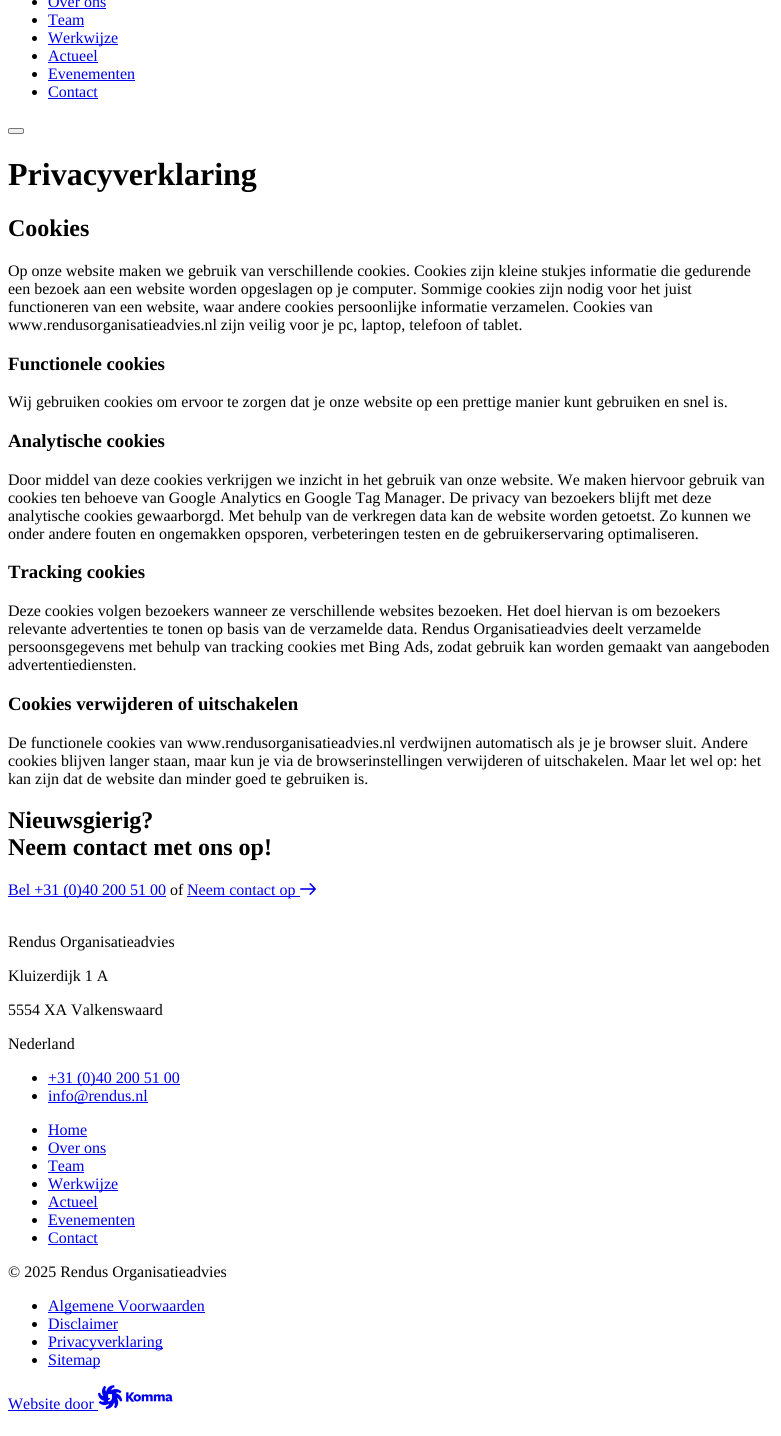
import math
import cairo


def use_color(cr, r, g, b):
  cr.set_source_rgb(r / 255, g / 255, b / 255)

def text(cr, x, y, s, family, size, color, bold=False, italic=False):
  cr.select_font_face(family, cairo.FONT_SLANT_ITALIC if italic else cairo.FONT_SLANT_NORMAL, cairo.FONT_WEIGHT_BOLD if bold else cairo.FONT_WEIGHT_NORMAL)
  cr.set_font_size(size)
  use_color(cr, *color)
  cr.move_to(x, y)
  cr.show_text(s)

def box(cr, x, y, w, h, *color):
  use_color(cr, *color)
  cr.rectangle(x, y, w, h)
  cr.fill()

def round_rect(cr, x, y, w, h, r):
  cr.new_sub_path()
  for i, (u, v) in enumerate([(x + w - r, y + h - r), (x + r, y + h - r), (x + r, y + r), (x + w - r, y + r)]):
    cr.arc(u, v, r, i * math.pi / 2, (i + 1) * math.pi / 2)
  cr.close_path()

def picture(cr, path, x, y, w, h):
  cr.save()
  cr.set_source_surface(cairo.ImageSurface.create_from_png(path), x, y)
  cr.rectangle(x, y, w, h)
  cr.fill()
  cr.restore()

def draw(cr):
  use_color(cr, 255, 255, 255)
  cr.paint()
  use_color(cr, 0, 0, 0)
  cr.arc(34.5, 2.5, 2.5, 0, 2 * math.pi)
  cr.fill()
  box(cr, 48, 8, 58, 1, 0, 0, 238)
  use_color(cr, 0, 0, 0)
  cr.arc(34.5, 20.5, 2.5, 0, 2 * math.pi)
  cr.fill()
  box(cr, 48, 26, 36, 1, 0, 0, 238)
  use_color(cr, 0, 0, 0)
  cr.arc(34.5, 38.5, 2.5, 0, 2 * math.pi)
  cr.fill()
  box(cr, 48, 44, 70, 1, 0, 0, 238)
  use_color(cr, 0, 0, 0)
  cr.arc(34.5, 56.5, 2.5, 0, 2 * math.pi)
  cr.fill()
  box(cr, 48, 62, 50, 1, 0, 0, 238)
  use_color(cr, 0, 0, 0)
  cr.arc(34.5, 74.5, 2.5, 0, 2 * math.pi)
  cr.fill()
  box(cr, 48, 80, 87, 1, 0, 0, 238)
  use_color(cr, 0, 0, 0)
  cr.arc(34.5, 92.5, 2.5, 0, 2 * math.pi)
  cr.fill()
  box(cr, 48, 98, 50, 1, 0, 0, 238)
  use_color(cr, 239, 239, 239)
  round_rect(cr, 8.5, 128.5, 15, 5, 1.5)
  cr.fill_preserve()
  use_color(cr, 118, 118, 118)
  cr.set_line_width(1)
  cr.stroke()
  box(cr, 8, 896, 158, 1, 0, 0, 238)
  box(cr, 187, 896, 113, 1, 0, 0, 238)
  picture(cr, "img_01.png", 300, 883, 16, 12)
  use_color(cr, 0, 0, 0)
  cr.arc(34.5, 1078.5, 2.5, 0, 2 * math.pi)
  cr.fill()
  box(cr, 48, 1084, 132, 1, 0, 0, 238)
  use_color(cr, 0, 0, 0)
  cr.arc(34.5, 1096.5, 2.5, 0, 2 * math.pi)
  cr.fill()
  box(cr, 48, 1102, 100, 1, 0, 0, 238)
  use_color(cr, 0, 0, 0)
  cr.arc(34.5, 1130.5, 2.5, 0, 2 * math.pi)
  cr.fill()
  box(cr, 48, 1136, 39, 1, 0, 0, 238)
  use_color(cr, 0, 0, 0)
  cr.arc(34.5, 1148.5, 2.5, 0, 2 * math.pi)
  cr.fill()
  box(cr, 48, 1154, 58, 1, 0, 0, 238)
  use_color(cr, 0, 0, 0)
  cr.arc(34.5, 1166.5, 2.5, 0, 2 * math.pi)
  cr.fill()
  box(cr, 48, 1172, 36, 1, 0, 0, 238)
  use_color(cr, 0, 0, 0)
  cr.arc(34.5, 1184.5, 2.5, 0, 2 * math.pi)
  cr.fill()
  box(cr, 48, 1190, 70, 1, 0, 0, 238)
  use_color(cr, 0, 0, 0)
  cr.arc(34.5, 1202.5, 2.5, 0, 2 * math.pi)
  cr.fill()
  box(cr, 48, 1208, 50, 1, 0, 0, 238)
  use_color(cr, 0, 0, 0)
  cr.arc(34.5, 1220.5, 2.5, 0, 2 * math.pi)
  cr.fill()
  box(cr, 48, 1226, 87, 1, 0, 0, 238)
  use_color(cr, 0, 0, 0)
  cr.arc(34.5, 1238.5, 2.5, 0, 2 * math.pi)
  cr.fill()
  box(cr, 48, 1244, 50, 1, 0, 0, 238)
  use_color(cr, 0, 0, 0)
  cr.arc(34.5, 1306.5, 2.5, 0, 2 * math.pi)
  cr.fill()
  box(cr, 48, 1312, 157, 1, 0, 0, 238)
  use_color(cr, 0, 0, 0)
  cr.arc(34.5, 1324.5, 2.5, 0, 2 * math.pi)
  cr.fill()
  box(cr, 48, 1330, 70, 1, 0, 0, 238)
  use_color(cr, 0, 0, 0)
  cr.arc(34.5, 1342.5, 2.5, 0, 2 * math.pi)
  cr.fill()
  box(cr, 48, 1348, 115, 1, 0, 0, 238)
  use_color(cr, 0, 0, 0)
  cr.arc(34.5, 1360.5, 2.5, 0, 2 * math.pi)
  cr.fill()
  box(cr, 48, 1366, 52, 1, 0, 0, 238)
  box(cr, 8, 1410, 90, 1, 0, 0, 238)
  picture(cr, "img_02.png", 98, 1385, 75, 24)
  text(cr, 48, 7, "Over ons", "Liberation Serif", 16, (0, 0, 238))
  text(cr, 48, 25, "Team", "Liberation Serif", 16, (0, 0, 238))
  text(cr, 48, 43, "Werkwijze", "Liberation Serif", 16, (0, 0, 238))
  text(cr, 48, 61, "Actueel", "Liberation Serif", 16, (0, 0, 238))
  text(cr, 48, 79, "Evenementen", "Liberation Serif", 16, (0, 0, 238))
  text(cr, 48, 97, "Contact", "Liberation Serif", 16, (0, 0, 238))
  text(cr, 8, 185, "Privacyverklaring", "Liberation Serif", 32, (0, 0, 0), bold=True)
  text(cr, 8, 236, "Cookies", "Liberation Serif", 24, (0, 0, 0), bold=True)
  text(cr, 8, 276, "Op onze website maken we gebruik van verschillende cookies. Cookies zijn kleine stukjes informatie die gedurende", "Liberation Serif", 16, (0, 0, 0))
  text(cr, 8, 294, "een bezoek aan een website worden opgeslagen op je computer. Sommige cookies zijn nodig voor het juist", "Liberation Serif", 16, (0, 0, 0))
  text(cr, 8, 312, "functioneren van een website, waar andere cookies persoonlijke informatie verzamelen. Cookies van", "Liberation Serif", 16, (0, 0, 0))
  text(cr, 8, 330, "www.rendusorganisatieadvies.nl zijn veilig voor je pc, laptop, telefoon of tablet.", "Liberation Serif", 16, (0, 0, 0))
  text(cr, 8, 370, "Functionele cookies", "Liberation Serif", 18.75, (0, 0, 0), bold=True)
  text(cr, 8, 407, "Wij gebruiken cookies om ervoor te zorgen dat je onze website op een prettige manier kunt gebruiken en snel is.", "Liberation Serif", 16, (0, 0, 0))
  text(cr, 8, 447, "Analytische cookies", "Liberation Serif", 18.75, (0, 0, 0), bold=True)
  text(cr, 8, 485, "Door middel van deze cookies verkrijgen we inzicht in het gebruik van onze website. We maken hiervoor gebruik van", "Liberation Serif", 16, (0, 0, 0))
  text(cr, 8, 503, "cookies ten behoeve van Google Analytics en Google Tag Manager. De privacy van bezoekers blijft met deze", "Liberation Serif", 16, (0, 0, 0))
  text(cr, 8, 521, "analytische cookies gewaarborgd. Met behulp van de verkregen data kan de website worden getoetst. Zo kunnen we", "Liberation Serif", 16, (0, 0, 0))
  text(cr, 8, 539, "onder andere fouten en ongemakken opsporen, verbeteringen testen en de gebruikerservaring optimaliseren.", "Liberation Serif", 16, (0, 0, 0))
  text(cr, 8, 578, "Tracking cookies", "Liberation Serif", 18.75, (0, 0, 0), bold=True)
  text(cr, 8, 616, "Deze cookies volgen bezoekers wanneer ze verschillende websites bezoeken. Het doel hiervan is om bezoekers", "Liberation Serif", 16, (0, 0, 0))
  text(cr, 8, 634, "relevante advertenties te tonen op basis van de verzamelde data. Rendus Organisatieadvies deelt verzamelde", "Liberation Serif", 16, (0, 0, 0))
  text(cr, 8, 652, "persoonsgegevens met behulp van tracking cookies met Bing Ads, zodat gebruik kan worden gemaakt van aangeboden", "Liberation Serif", 16, (0, 0, 0))
  text(cr, 8, 670, "advertentiediensten.", "Liberation Serif", 16, (0, 0, 0))
  text(cr, 8, 710, "Cookies verwijderen of uitschakelen", "Liberation Serif", 18.75, (0, 0, 0), bold=True)
  text(cr, 8, 748, "De functionele cookies van www.rendusorganisatieadvies.nl verdwijnen automatisch als je je browser sluit. Andere", "Liberation Serif", 16, (0, 0, 0))
  text(cr, 8, 766, "cookies blijven langer staan, maar kun je via de browserinstellingen verwijderen of uitschakelen. Maar let wel op: het", "Liberation Serif", 16, (0, 0, 0))
  text(cr, 8, 784, "kan zijn dat de website dan minder goed te gebruiken is.", "Liberation Serif", 16, (0, 0, 0))
  text(cr, 8, 828, "Nieuwsgierig?", "Liberation Serif", 24, (0, 0, 0), bold=True)
  text(cr, 8, 855, "Neem contact met ons op!", "Liberation Serif", 24, (0, 0, 0), bold=True)
  text(cr, 8, 895, "Bel +31 (0)40 200 51 00", "Liberation Serif", 16, (0, 0, 238))
  text(cr, 170, 895, "of", "Liberation Serif", 16, (0, 0, 0))
  text(cr, 187, 895, "Neem contact op", "Liberation Serif", 16, (0, 0, 238))
  text(cr, 8, 947, "Rendus Organisatieadvies", "Liberation Serif", 16, (0, 0, 0))
  text(cr, 8, 981, "Kluizerdijk 1 A", "Liberation Serif", 16, (0, 0, 0))
  text(cr, 8, 1015, "5554 XA Valkenswaard", "Liberation Serif", 16, (0, 0, 0))
  text(cr, 8, 1049, "Nederland", "Liberation Serif", 16, (0, 0, 0))
  text(cr, 48, 1083, "+31 (0)40 200 51 00", "Liberation Serif", 16, (0, 0, 238))
  text(cr, 48, 1101, "info@rendus.nl", "Liberation Serif", 16, (0, 0, 238))
  text(cr, 48, 1135, "Home", "Liberation Serif", 16, (0, 0, 238))
  text(cr, 48, 1153, "Over ons", "Liberation Serif", 16, (0, 0, 238))
  text(cr, 48, 1171, "Team", "Liberation Serif", 16, (0, 0, 238))
  text(cr, 48, 1189, "Werkwijze", "Liberation Serif", 16, (0, 0, 238))
  text(cr, 48, 1207, "Actueel", "Liberation Serif", 16, (0, 0, 238))
  text(cr, 48, 1225, "Evenementen", "Liberation Serif", 16, (0, 0, 238))
  text(cr, 48, 1243, "Contact", "Liberation Serif", 16, (0, 0, 238))
  text(cr, 8, 1277, "© 2025 Rendus Organisatieadvies", "Liberation Serif", 16, (0, 0, 0))
  text(cr, 48, 1311, "Algemene Voorwaarden", "Liberation Serif", 16, (0, 0, 238))
  text(cr, 48, 1329, "Disclaimer", "Liberation Serif", 16, (0, 0, 238))
  text(cr, 48, 1347, "Privacyverklaring", "Liberation Serif", 16, (0, 0, 238))
  text(cr, 48, 1365, "Sitemap", "Liberation Serif", 16, (0, 0, 238))
  text(cr, 8, 1409, "Website door", "Liberation Serif", 16, (0, 0, 238))


surface = cairo.ImageSurface(cairo.FORMAT_RGB24, 781, 1436)
cr = cairo.Context(surface)
options = cairo.FontOptions()
options.set_hint_metrics(cairo.HINT_METRICS_OFF)
options.set_hint_style(cairo.HINT_STYLE_NONE)
cr.set_font_options(options)
cr.set_miter_limit(4)
draw(cr)
surface.write_to_png("out.png")
